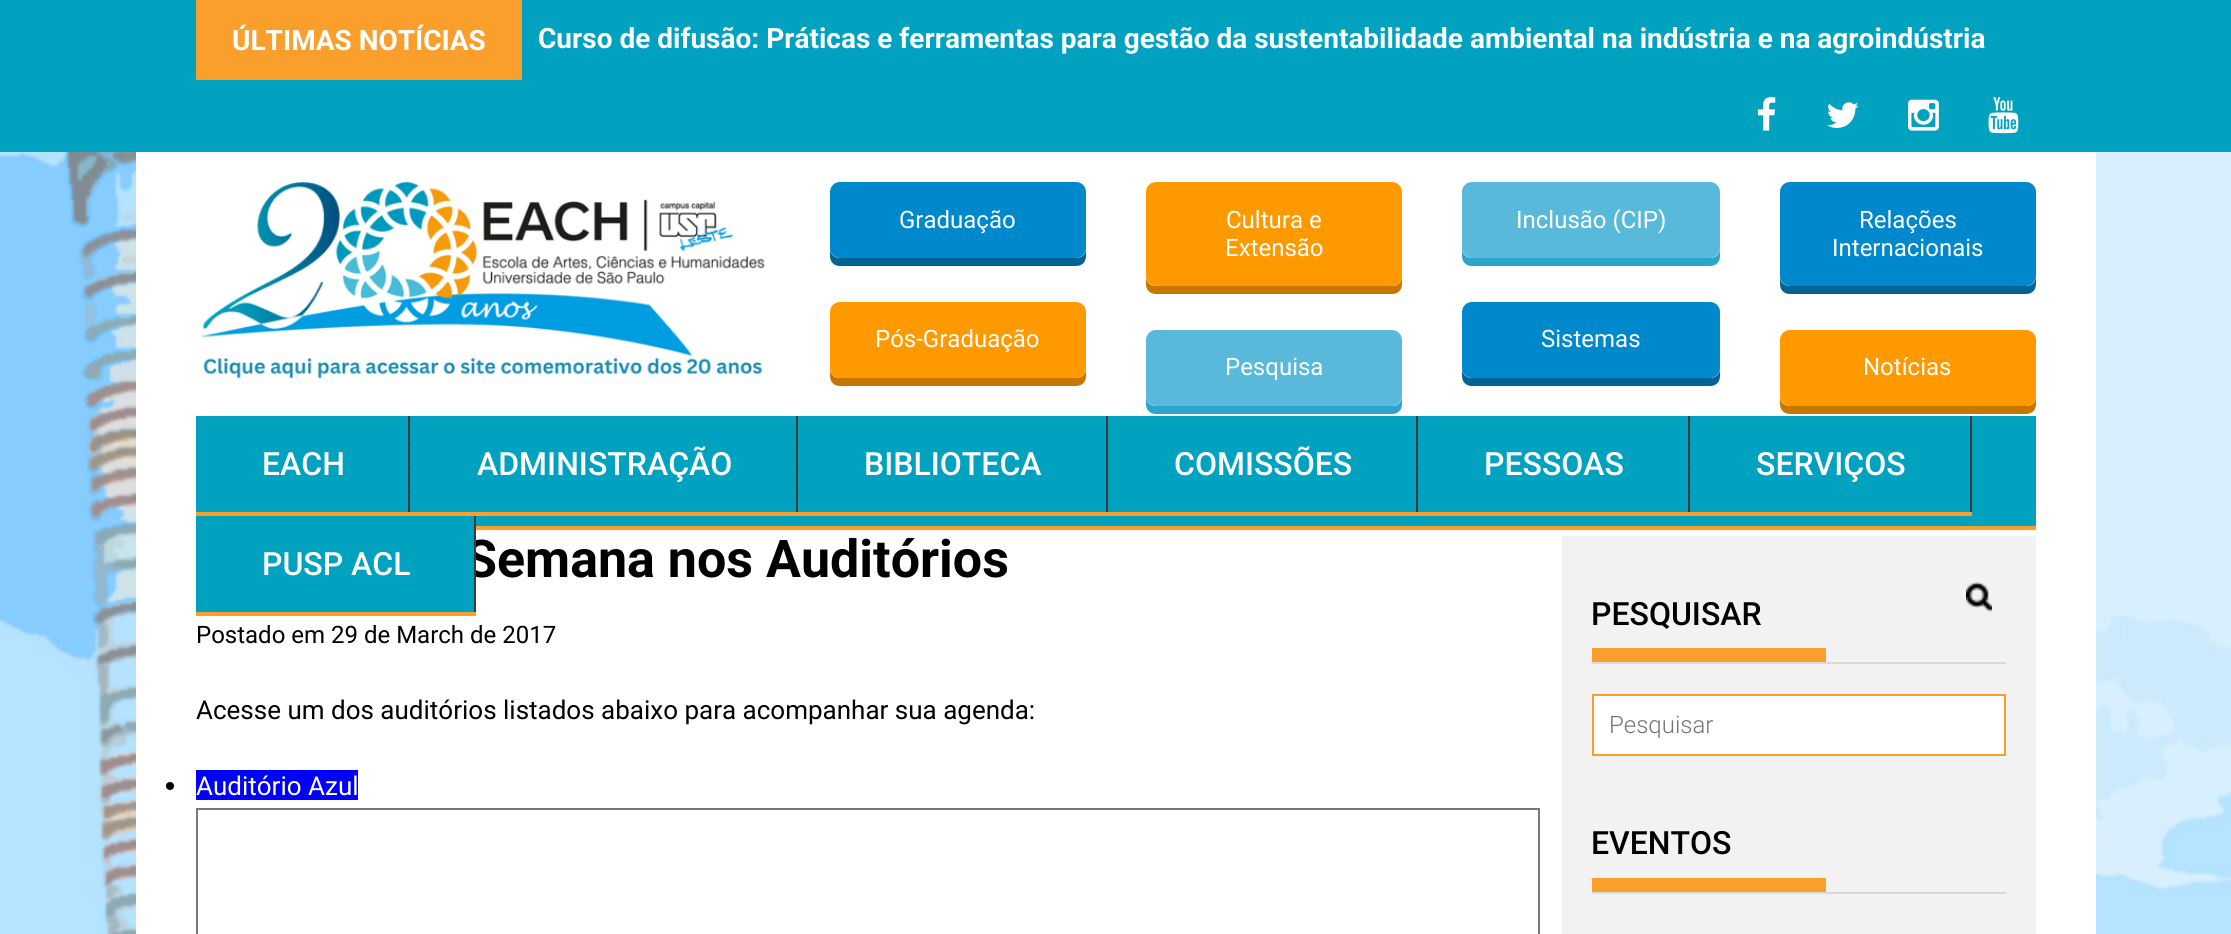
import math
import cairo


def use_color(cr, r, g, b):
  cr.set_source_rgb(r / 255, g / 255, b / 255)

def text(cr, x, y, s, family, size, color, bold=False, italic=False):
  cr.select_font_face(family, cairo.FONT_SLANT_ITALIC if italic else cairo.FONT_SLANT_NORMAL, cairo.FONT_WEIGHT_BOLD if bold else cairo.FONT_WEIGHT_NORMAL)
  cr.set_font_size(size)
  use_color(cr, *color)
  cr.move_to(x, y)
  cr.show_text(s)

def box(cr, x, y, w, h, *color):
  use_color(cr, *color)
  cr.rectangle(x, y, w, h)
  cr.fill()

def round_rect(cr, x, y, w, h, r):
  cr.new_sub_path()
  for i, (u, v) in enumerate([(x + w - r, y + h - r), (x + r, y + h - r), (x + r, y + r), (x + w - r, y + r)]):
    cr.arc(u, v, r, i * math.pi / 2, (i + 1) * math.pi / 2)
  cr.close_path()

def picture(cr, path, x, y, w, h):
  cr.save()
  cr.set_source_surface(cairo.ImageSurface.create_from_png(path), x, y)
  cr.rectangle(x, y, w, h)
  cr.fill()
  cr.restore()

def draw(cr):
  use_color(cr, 255, 255, 255)
  cr.paint()
  picture(cr, "img_01.png", 0, 152, 2231, 782)
  box(cr, 0, 0, 2231, 152, 1, 161, 192)
  box(cr, 196, 0, 326, 80, 250, 158, 44)
  picture(cr, "img_02.png", 1757, 97, 19, 34)
  picture(cr, "img_03.png", 1827, 102, 32, 26)
  picture(cr, "img_04.png", 1908, 99, 31, 32)
  picture(cr, "img_05.png", 1988, 97, 31, 37)
  box(cr, 136, 152, 1960, 782, 255, 255, 255)
  picture(cr, "img_06.png", 200, 182, 565, 197)
  use_color(cr, 0, 99, 148)
  cr.new_path()
  cr.move_to(830, 248)
  cr.line_to(830, 256)
  cr.curve_to(830, 262, 834, 266, 840, 266)
  cr.line_to(1076, 266)
  cr.curve_to(1082, 266, 1086, 262, 1086, 256)
  cr.line_to(1086, 248)
  cr.curve_to(1086, 254, 1082, 258, 1076, 258)
  cr.line_to(840, 258)
  cr.curve_to(834, 258, 830, 254, 830, 248)
  cr.close_path()
  cr.fill()
  use_color(cr, 0, 136, 204)
  round_rect(cr, 830, 182, 256, 76, 10)
  cr.fill()
  use_color(cr, 199, 119, 0)
  cr.new_path()
  cr.move_to(830, 368)
  cr.line_to(830, 376)
  cr.curve_to(830, 382, 834, 386, 840, 386)
  cr.line_to(1076, 386)
  cr.curve_to(1082, 386, 1086, 382, 1086, 376)
  cr.line_to(1086, 368)
  cr.curve_to(1086, 374, 1082, 378, 1076, 378)
  cr.line_to(840, 378)
  cr.curve_to(834, 378, 830, 374, 830, 368)
  cr.close_path()
  cr.fill()
  use_color(cr, 255, 153, 0)
  round_rect(cr, 830, 302, 256, 76, 10)
  cr.fill()
  use_color(cr, 199, 119, 0)
  cr.new_path()
  cr.move_to(1146, 276)
  cr.line_to(1146, 284)
  cr.curve_to(1146, 290, 1150, 294, 1156, 294)
  cr.line_to(1392, 294)
  cr.curve_to(1398, 294, 1402, 290, 1402, 284)
  cr.line_to(1402, 276)
  cr.curve_to(1402, 282, 1398, 286, 1392, 286)
  cr.line_to(1156, 286)
  cr.curve_to(1150, 286, 1146, 282, 1146, 276)
  cr.close_path()
  cr.fill()
  use_color(cr, 255, 153, 0)
  round_rect(cr, 1146, 182, 256, 104, 10)
  cr.fill()
  use_color(cr, 45, 164, 205)
  cr.new_path()
  cr.move_to(1146, 396)
  cr.line_to(1146, 404)
  cr.curve_to(1146, 410, 1150, 414, 1156, 414)
  cr.line_to(1392, 414)
  cr.curve_to(1398, 414, 1402, 410, 1402, 404)
  cr.line_to(1402, 396)
  cr.curve_to(1402, 402, 1398, 406, 1392, 406)
  cr.line_to(1156, 406)
  cr.curve_to(1150, 406, 1146, 402, 1146, 396)
  cr.close_path()
  cr.fill()
  use_color(cr, 88, 185, 218)
  round_rect(cr, 1146, 330, 256, 76, 10)
  cr.fill()
  use_color(cr, 45, 164, 205)
  cr.new_path()
  cr.move_to(1462, 248)
  cr.line_to(1462, 256)
  cr.curve_to(1462, 262, 1466, 266, 1472, 266)
  cr.line_to(1710, 266)
  cr.curve_to(1716, 266, 1720, 262, 1720, 256)
  cr.line_to(1720, 248)
  cr.curve_to(1720, 254, 1716, 258, 1710, 258)
  cr.line_to(1472, 258)
  cr.curve_to(1466, 258, 1462, 254, 1462, 248)
  cr.close_path()
  cr.fill()
  use_color(cr, 88, 185, 218)
  round_rect(cr, 1462, 182, 258, 76, 10)
  cr.fill()
  use_color(cr, 0, 99, 148)
  cr.new_path()
  cr.move_to(1462, 368)
  cr.line_to(1462, 376)
  cr.curve_to(1462, 382, 1466, 386, 1472, 386)
  cr.line_to(1710, 386)
  cr.curve_to(1716, 386, 1720, 382, 1720, 376)
  cr.line_to(1720, 368)
  cr.curve_to(1720, 374, 1716, 378, 1710, 378)
  cr.line_to(1472, 378)
  cr.curve_to(1466, 378, 1462, 374, 1462, 368)
  cr.close_path()
  cr.fill()
  use_color(cr, 0, 136, 204)
  round_rect(cr, 1462, 302, 258, 76, 10)
  cr.fill()
  use_color(cr, 0, 99, 148)
  cr.new_path()
  cr.move_to(1780, 276)
  cr.line_to(1780, 284)
  cr.curve_to(1780, 290, 1784, 294, 1790, 294)
  cr.line_to(2026, 294)
  cr.curve_to(2032, 294, 2036, 290, 2036, 284)
  cr.line_to(2036, 276)
  cr.curve_to(2036, 282, 2032, 286, 2026, 286)
  cr.line_to(1790, 286)
  cr.curve_to(1784, 286, 1780, 282, 1780, 276)
  cr.close_path()
  cr.fill()
  use_color(cr, 0, 136, 204)
  round_rect(cr, 1780, 182, 256, 104, 10)
  cr.fill()
  use_color(cr, 199, 119, 0)
  cr.new_path()
  cr.move_to(1780, 396)
  cr.line_to(1780, 404)
  cr.curve_to(1780, 410, 1784, 414, 1790, 414)
  cr.line_to(2026, 414)
  cr.curve_to(2032, 414, 2036, 410, 2036, 404)
  cr.line_to(2036, 396)
  cr.curve_to(2036, 402, 2032, 406, 2026, 406)
  cr.line_to(1790, 406)
  cr.curve_to(1784, 406, 1780, 402, 1780, 396)
  cr.close_path()
  cr.fill()
  use_color(cr, 255, 153, 0)
  round_rect(cr, 1780, 330, 256, 76, 10)
  cr.fill()
  box(cr, 196, 416, 1840, 110, 1, 161, 192)
  box(cr, 476, 526, 1560, 4, 250, 158, 44)
  picture(cr, "img_07.png", 408, 416, 2, 96)
  box(cr, 196, 512, 1776, 4, 250, 158, 44)
  picture(cr, "img_07.png", 796, 416, 2, 96)
  picture(cr, "img_07.png", 1106, 416, 2, 96)
  picture(cr, "img_07.png", 1416, 416, 2, 96)
  picture(cr, "img_07.png", 1688, 416, 2, 96)
  picture(cr, "img_07.png", 1970, 416, 2, 96)
  box(cr, 196, 612, 280, 4, 250, 158, 44)
  use_color(cr, 0, 0, 0)
  cr.arc(170, 786, 4, 0, 2 * math.pi)
  cr.fill()
  box(cr, 196, 770, 162, 30, 0, 0, 255)
  cr.rectangle(197, 809, 1342, 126)
  use_color(cr, 119, 119, 119)
  cr.stroke()
  box(cr, 1562, 536, 474, 398, 242, 242, 242)
  box(cr, 1592, 662, 414, 2, 217, 217, 217)
  box(cr, 1592, 648, 234, 14, 250, 158, 44)
  picture(cr, "img_08.png", 1966, 582, 26, 30)
  use_color(cr, 255, 255, 255)
  cr.rectangle(1593, 695, 412, 60)
  cr.fill_preserve()
  use_color(cr, 250, 158, 44)
  cr.stroke()
  box(cr, 1592, 892, 414, 2, 217, 217, 217)
  box(cr, 1592, 878, 234, 14, 250, 158, 44)
  text(cr, 232, 50, "ÚLTIMAS NOTÍCIAS", "Roboto", 28, (255, 255, 255), bold=True)
  text(cr, 538, 48, "Curso de difusão: Práticas e ferramentas para gestão da sustentabilidade ambiental na indústria e na agroindústria", "Roboto", 28, (255, 255, 255), bold=True)
  text(cr, 899, 228, "Graduação", "Roboto", 24, (255, 255, 255))
  text(cr, 875, 347, "Pós-Graduação", "Roboto", 24, (255, 255, 255))
  text(cr, 1226, 228, "Cultura e", "Roboto", 24, (255, 255, 255))
  text(cr, 1225, 256, "Extensão", "Roboto", 24, (255, 255, 255))
  text(cr, 1225, 375, "Pesquisa", "Roboto", 24, (255, 255, 255))
  text(cr, 1516, 228, "Inclusão (CIP)", "Roboto", 24, (255, 255, 255))
  text(cr, 1541, 347, "Sistemas", "Roboto", 24, (255, 255, 255))
  text(cr, 1859, 228, "Relações", "Roboto", 24, (255, 255, 255))
  text(cr, 1832, 256, "Internacionais", "Roboto", 24, (255, 255, 255))
  text(cr, 1863, 375, "Notícias", "Roboto", 24, (255, 255, 255))
  text(cr, 262, 475, "EACH", "Roboto Medium", 32, (255, 255, 255))
  text(cr, 477, 475, "ADMINISTRAÇÃO", "Roboto Medium", 32, (255, 255, 255))
  text(cr, 864, 475, "BIBLIOTECA", "Roboto Medium", 32, (255, 255, 255))
  text(cr, 1174, 475, "COMISSÕES", "Roboto Medium", 32, (255, 255, 255))
  text(cr, 1484, 475, "PESSOAS", "Roboto Medium", 32, (255, 255, 255))
  text(cr, 1756, 475, "SERVIÇOS", "Roboto Medium", 32, (255, 255, 255))
  text(cr, 465, 577, "Semana nos Auditórios", "Roboto", 52, (0, 0, 0), bold=True)
  box(cr, 196, 526, 278, 86, 1, 161, 192)
  text(cr, 262, 575, "PUSP ACL", "Roboto Medium", 32, (255, 255, 255))
  picture(cr, "img_07.png", 474, 516, 2, 96)
  text(cr, 196, 643, "Postado em 29 de March de 2017", "Roboto", 24, (0, 0, 0))
  text(cr, 196, 719, "Acesse um dos auditórios listados abaixo para acompanhar sua agenda:", "Roboto", 26, (0, 0, 0))
  text(cr, 196, 795, "Auditório Azul", "Roboto", 26, (255, 255, 255))
  text(cr, 1591, 625, "PESQUISAR", "Roboto Medium", 32, (0, 0, 0))
  text(cr, 1609, 733, "Pesquisar", "Roboto Light", 24, (117, 117, 117))
  text(cr, 1591, 854, "EVENTOS", "Roboto Medium", 32, (0, 0, 0))


surface = cairo.ImageSurface(cairo.FORMAT_RGB24, 2231, 934)
cr = cairo.Context(surface)
options = cairo.FontOptions()
options.set_hint_metrics(cairo.HINT_METRICS_OFF)
options.set_hint_style(cairo.HINT_STYLE_NONE)
cr.set_font_options(options)
cr.set_miter_limit(4)
draw(cr)
surface.write_to_png("out.png")
